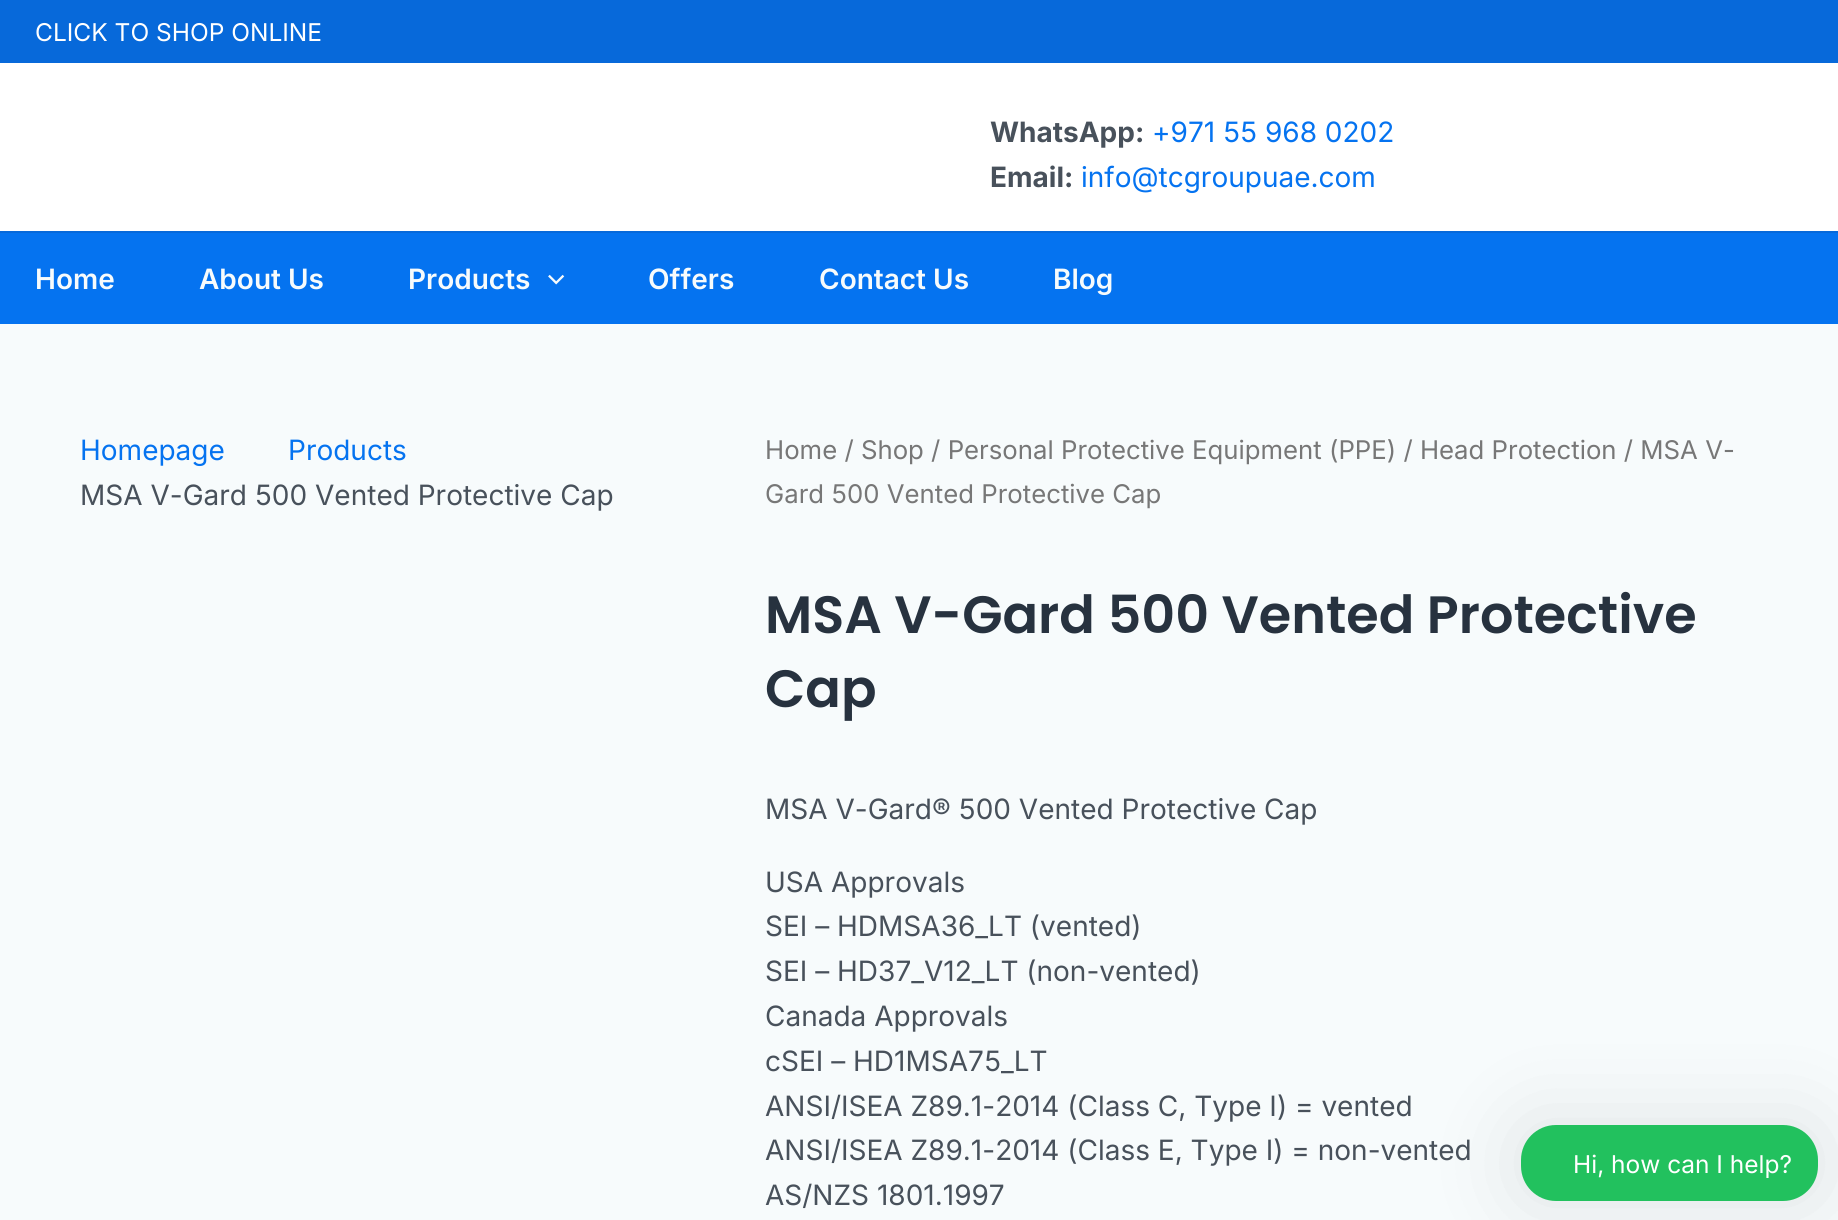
import math
import cairo


def use_color(cr, r, g, b):
  cr.set_source_rgb(r / 255, g / 255, b / 255)

def text(cr, x, y, s, family, size, color, bold=False, italic=False):
  cr.select_font_face(family, cairo.FONT_SLANT_ITALIC if italic else cairo.FONT_SLANT_NORMAL, cairo.FONT_WEIGHT_BOLD if bold else cairo.FONT_WEIGHT_NORMAL)
  cr.set_font_size(size)
  use_color(cr, *color)
  cr.move_to(x, y)
  cr.show_text(s)

def box(cr, x, y, w, h, *color):
  use_color(cr, *color)
  cr.rectangle(x, y, w, h)
  cr.fill()

def round_rect(cr, x, y, w, h, r):
  cr.new_sub_path()
  for i, (u, v) in enumerate([(x + w - r, y + h - r), (x + r, y + h - r), (x + r, y + r), (x + w - r, y + r)]):
    cr.arc(u, v, r, i * math.pi / 2, (i + 1) * math.pi / 2)
  cr.close_path()

def shadow(cr, x, y, w, h, r, blur, alpha):
  cr.push_group_with_content(cairo.CONTENT_ALPHA)
  cr.set_operator(cairo.OPERATOR_SOURCE)
  for i in range(15, -16, -2):
    e = blur * i / 6
    if min(w, h) + 2 * e > 0:
      cr.set_source_rgba(0, 0, 0, alpha * math.erfc((i - 1) / 8.5) / 2)
      round_rect(cr, x - e, y - e, w + 2 * e, h + 2 * e, max(0, min(r + e + blur * .6, min(w, h) / 2 + e)))
      cr.fill()
  cr.mask(cr.pop_group())

def picture(cr, path, x, y, w, h):
  cr.save()
  cr.set_source_surface(cairo.ImageSurface.create_from_png(path), x, y)
  cr.rectangle(x, y, w, h)
  cr.fill()
  cr.restore()

def draw(cr):
  use_color(cr, 247, 251, 252)
  cr.paint()
  box(cr, 0, 0, 1838, 63, 7, 105, 218)
  box(cr, 0, 63, 1838, 168, 255, 255, 255)
  box(cr, 0, 231, 1838, 2, 7, 105, 218)
  box(cr, 0, 233, 1838, 91, 5, 115, 240)
  picture(cr, "img_01.png", 548, 274, 17, 11)
  use_color(cr, 0, 0, 0)
  shadow(cr, 1521, 1125, 297, 76, 35, 44, 0.1)
  use_color(cr, 34, 193, 94)
  round_rect(cr, 1521, 1125, 297, 76, 35)
  cr.fill()
  text(cr, 35, 41, "CLICK TO SHOP ONLINE", "Inter", 24.5, (255, 255, 255))
  text(cr, 990, 142, "WhatsApp:", "Inter", 28, (72, 81, 91), bold=True)
  text(cr, 1152, 142, "+971 55 968 0202", "Inter", 28, (5, 115, 240))
  text(cr, 990, 187, "Email:", "Inter", 28, (72, 81, 91), bold=True)
  text(cr, 1081, 187, "info@tcgroupuae.com", "Inter", 28, (5, 115, 240))
  text(cr, 35, 289, "Home", "Inter SemiBold", 28, (247, 251, 252))
  text(cr, 199, 289, "About Us", "Inter SemiBold", 28, (247, 251, 252))
  text(cr, 408, 289, "Products", "Inter SemiBold", 28, (247, 251, 252))
  text(cr, 648, 289, "Offers", "Inter SemiBold", 28, (247, 251, 252))
  text(cr, 819, 289, "Contact Us", "Inter SemiBold", 28, (247, 251, 252))
  text(cr, 1053, 289, "Blog", "Inter SemiBold", 28, (247, 251, 252))
  text(cr, 80, 460, "Homepage", "Inter", 28, (5, 115, 240))
  text(cr, 288, 460, "Products", "Inter", 28, (5, 115, 240))
  text(cr, 80, 505, "MSA V-Gard 500 Vented Protective Cap", "Inter", 28, (72, 81, 91))
  text(cr, 765, 459, "Home / Shop / Personal Protective Equipment (PPE) / Head Protection / MSA V-", "Inter", 25.75, (119, 119, 119))
  text(cr, 765, 503, "Gard 500 Vented Protective Cap", "Inter", 25.75, (119, 119, 119))
  text(cr, 765, 633, "MSA V-Gard 500 Vented Protective", "Poppins SemiBold", 52.5, (39, 50, 63))
  text(cr, 765, 707, "Cap", "Poppins SemiBold", 52.5, (39, 50, 63))
  text(cr, 765, 819, "MSA V-Gard® 500 Vented Protective Cap", "Inter", 28, (72, 81, 91))
  text(cr, 765, 892, "USA Approvals", "Inter", 28, (72, 81, 91))
  text(cr, 765, 936, "SEI – HDMSA36_LT (vented)", "Inter", 28, (72, 81, 91))
  text(cr, 765, 981, "SEI – HD37_V12_LT (non-vented)", "Inter", 28, (72, 81, 91))
  text(cr, 765, 1026, "Canada Approvals", "Inter", 28, (72, 81, 91))
  text(cr, 765, 1071, "cSEI – HD1MSA75_LT", "Inter", 28, (72, 81, 91))
  text(cr, 765, 1116, "ANSI/ISEA Z89.1-2014 (Class C, Type I) = vented", "Inter", 28, (72, 81, 91))
  text(cr, 765, 1160, "ANSI/ISEA Z89.1-2014 (Class E, Type I) = non-vented", "Inter", 28, (72, 81, 91))
  text(cr, 765, 1205, "AS/NZS 1801.1997", "Inter", 28, (72, 81, 91))
  text(cr, 1573, 1173, "Hi, how can I help?", "Inter", 24.5, (255, 255, 255))


surface = cairo.ImageSurface(cairo.FORMAT_RGB24, 1838, 1220)
cr = cairo.Context(surface)
options = cairo.FontOptions()
options.set_hint_metrics(cairo.HINT_METRICS_OFF)
options.set_hint_style(cairo.HINT_STYLE_NONE)
cr.set_font_options(options)
cr.set_miter_limit(4)
draw(cr)
surface.write_to_png("out.png")
